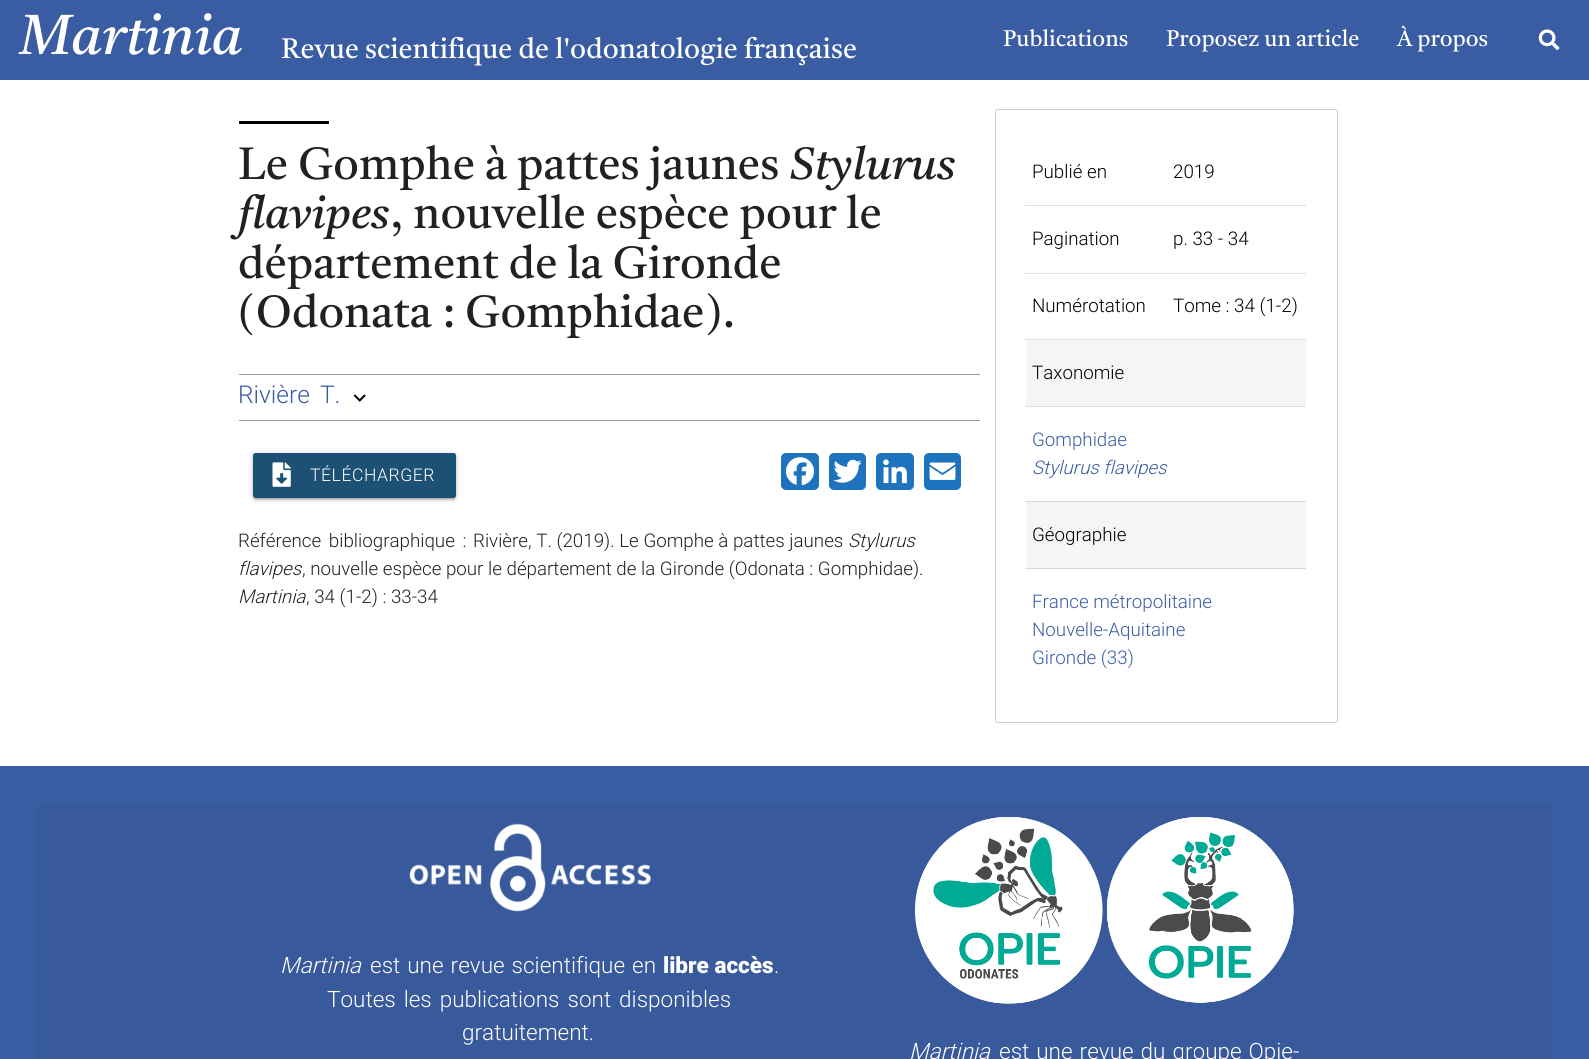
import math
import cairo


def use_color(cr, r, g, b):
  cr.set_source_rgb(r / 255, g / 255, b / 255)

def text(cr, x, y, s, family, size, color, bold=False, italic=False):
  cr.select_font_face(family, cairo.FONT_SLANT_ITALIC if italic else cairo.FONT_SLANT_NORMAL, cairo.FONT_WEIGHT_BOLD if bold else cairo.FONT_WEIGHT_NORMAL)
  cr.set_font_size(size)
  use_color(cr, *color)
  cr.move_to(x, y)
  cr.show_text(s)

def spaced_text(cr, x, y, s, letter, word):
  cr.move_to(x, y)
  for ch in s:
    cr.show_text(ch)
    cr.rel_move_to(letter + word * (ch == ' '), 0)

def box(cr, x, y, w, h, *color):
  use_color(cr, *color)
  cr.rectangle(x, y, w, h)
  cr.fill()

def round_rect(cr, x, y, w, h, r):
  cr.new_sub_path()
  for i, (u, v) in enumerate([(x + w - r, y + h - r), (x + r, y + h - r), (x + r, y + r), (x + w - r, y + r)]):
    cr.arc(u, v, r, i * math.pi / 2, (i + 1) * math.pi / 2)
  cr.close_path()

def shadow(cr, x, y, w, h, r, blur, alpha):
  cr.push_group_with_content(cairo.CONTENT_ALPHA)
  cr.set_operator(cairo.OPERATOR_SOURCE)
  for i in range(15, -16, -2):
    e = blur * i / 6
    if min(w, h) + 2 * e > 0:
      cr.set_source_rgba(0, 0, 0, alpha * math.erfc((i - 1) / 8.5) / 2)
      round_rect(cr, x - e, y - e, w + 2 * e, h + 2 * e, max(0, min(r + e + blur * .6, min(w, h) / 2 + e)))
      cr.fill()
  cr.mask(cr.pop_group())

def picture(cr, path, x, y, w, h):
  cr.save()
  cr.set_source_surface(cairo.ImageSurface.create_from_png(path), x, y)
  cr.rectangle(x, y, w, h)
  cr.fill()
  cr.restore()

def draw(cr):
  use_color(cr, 255, 255, 255)
  cr.paint()
  box(cr, 1025, 501, 1, 1, 224, 224, 224)
  box(cr, 1025, 568, 1, 1, 224, 224, 224)
  box(cr, 0, 0, 1589, 80, 57, 92, 163)
  picture(cr, "img_01.png", 1538, 29, 22, 22)
  box(cr, 239, 121, 90, 3, 0, 0, 0)
  box(cr, 239, 374, 741, 1, 153, 153, 153)
  box(cr, 239, 420, 741, 1, 153, 153, 153)
  picture(cr, "img_02.png", 353, 394, 13, 8)
  use_color(cr, 0, 0, 0)
  shadow(cr, 253, 454, 203, 45, 2.5, 3, 0.2)
  shadow(cr, 255, 459, 199, 40, 0, 0.5, 0.12)
  shadow(cr, 253, 455, 203, 45, 2.5, 1, 0.14)
  use_color(cr, 28, 80, 116)
  round_rect(cr, 253, 453, 203, 45, 2.5)
  cr.fill()
  picture(cr, "img_03.png", 272, 462, 19, 25)
  use_color(cr, 30, 115, 190)
  round_rect(cr, 781, 453, 38, 37, 5)
  cr.fill()
  picture(cr, "img_04.png", 785, 457, 30, 29)
  round_rect(cr, 829, 453, 37, 37, 5)
  cr.fill()
  picture(cr, "img_05.png", 833, 459, 29, 24)
  round_rect(cr, 876, 453, 38, 37, 5)
  cr.fill()
  picture(cr, "img_06.png", 883, 459, 24, 25)
  round_rect(cr, 924, 453, 37, 37, 5)
  cr.fill()
  picture(cr, "img_07.png", 929, 462, 27, 18)
  round_rect(cr, 995.5, 109.5, 342, 613, 2)
  use_color(cr, 204, 204, 204)
  cr.set_line_width(1)
  cr.stroke()
  box(cr, 1025, 205, 281, 1, 224, 224, 224)
  box(cr, 1025, 273, 281, 1, 224, 224, 224)
  box(cr, 1025, 339, 281, 1, 224, 224, 224)
  box(cr, 1026, 340, 280, 66, 245, 245, 245)
  box(cr, 1025, 406, 281, 1, 224, 224, 224)
  box(cr, 1026, 502, 280, 66, 245, 245, 245)
  box(cr, 1026, 501, 280, 1, 216, 216, 216)
  box(cr, 1026, 568, 280, 1, 216, 216, 216)
  box(cr, 0, 766, 1589, 293, 57, 92, 163)
  box(cr, 38, 804, 1515, 255, 56, 89, 155)
  picture(cr, "img_08.png", 409, 823, 242, 89)
  picture(cr, "img_09.png", 915, 817, 188, 187)
  picture(cr, "img_10.png", 1107, 817, 187, 186)
  text(cr, 19, 54, "Martinia", "Castoro", 56, (255, 255, 255), italic=True)
  text(cr, 281, 58, "Revue scientifique de l'odonatologie française", "Castoro", 28.1, (255, 255, 255))
  text(cr, 1003, 46, "Publications", "Castoro", 22.5, (255, 255, 255))
  text(cr, 1166, 46, "Proposez un article", "Castoro", 22.5, (255, 255, 255))
  text(cr, 1397, 46, "À propos", "Castoro", 22.5, (255, 255, 255))
  text(cr, 238, 179, "Le Gomphe à pattes jaunes", "Castoro", 45, (33, 33, 33))
  text(cr, 790, 179, "Stylurus", "Castoro", 45, (33, 33, 33), italic=True)
  text(cr, 238, 228, "flavipes", "Castoro", 45, (33, 33, 33), italic=True)
  text(cr, 390, 228, ", nouvelle espèce pour le", "Castoro", 45, (33, 33, 33))
  text(cr, 238, 278, "département de la Gironde", "Castoro", 45, (33, 33, 33))
  text(cr, 238, 327, "(Odonata : Gomphidae).", "Castoro", 45, (33, 33, 33))
  cr.select_font_face("Roboto Light")
  cr.set_font_size(24.5)
  use_color(cr, 57, 92, 163)
  spaced_text(cr, 238, 403, "Rivière T.", 0, 4)
  cr.set_font_size(17.5)
  use_color(cr, 255, 255, 255)
  spaced_text(cr, 310, 481, "TÉLÉCHARGER", 0.6, 0)
  cr.set_font_size(18.75)
  use_color(cr, 33, 33, 33)
  spaced_text(cr, 238, 547, "Référence bibliographique :", 0, 3)
  text(cr, 473, 547, "Rivière, T. (2019). Le Gomphe à pattes jaunes", "Roboto Light", 18.75, (33, 33, 33))
  text(cr, 848, 547, "Stylurus", "Roboto Light", 18.75, (33, 33, 33), italic=True)
  text(cr, 238, 575, "flavipes", "Roboto Light", 18.75, (33, 33, 33), italic=True)
  text(cr, 302, 575, ", nouvelle espèce pour le département de la Gironde (Odonata : Gomphidae).", "Roboto Light", 18.75, (33, 33, 33))
  text(cr, 238, 603, "Martinia", "Roboto Light", 18.75, (33, 33, 33), italic=True)
  text(cr, 306, 603, ", 34 (1-2) : 33-34", "Roboto Light", 18.75, (33, 33, 33))
  text(cr, 1032, 178, "Publié en", "Roboto Light", 18.75, (0, 0, 0))
  text(cr, 1173, 178, "2019", "Roboto Light", 18.75, (0, 0, 0))
  text(cr, 1032, 245, "Pagination", "Roboto Light", 18.75, (0, 0, 0))
  text(cr, 1173, 245, "p. 33 - 34", "Roboto Light", 18.75, (0, 0, 0))
  text(cr, 1032, 312, "Numérotation", "Roboto Light", 18.75, (0, 0, 0))
  text(cr, 1173, 312, "Tome : 34 (1-2)", "Roboto Light", 18.75, (0, 0, 0))
  text(cr, 1032, 379, "Taxonomie", "Roboto Light", 18.75, (0, 0, 0))
  text(cr, 1032, 446, "Gomphidae", "Roboto Light", 18.75, (57, 92, 163))
  text(cr, 1032, 474, "Stylurus flavipes", "Roboto Light", 18.75, (57, 92, 163), italic=True)
  text(cr, 1032, 541, "Géographie", "Roboto Light", 18.75, (0, 0, 0))
  text(cr, 1032, 608, "France métropolitaine", "Roboto Light", 18.75, (57, 92, 163))
  text(cr, 1032, 636, "Nouvelle-Aquitaine", "Roboto Light", 18.75, (57, 92, 163))
  text(cr, 1032, 664, "Gironde (33)", "Roboto Light", 18.75, (57, 92, 163))
  text(cr, 280, 973, "Martinia", "Roboto Light", 22.5, (255, 255, 255), italic=True)
  cr.select_font_face("Roboto Light")
  spaced_text(cr, 370, 973, "est une revue scientifique en", 0, 1.5)
  text(cr, 663, 973, "libre accès", "Roboto Black", 22.5, (255, 255, 255))
  text(cr, 774, 973, ".", "Roboto Light", 22.5, (255, 255, 255))
  spaced_text(cr, 327, 1007, "Toutes les publications sont disponibles", 0, 2.5)
  text(cr, 462, 1040, "gratuitement.", "Roboto Light", 22.5, (255, 255, 255))
  text(cr, 909, 1059, "Martinia", "Roboto Light", 22.5, (255, 255, 255), italic=True)
  cr.select_font_face("Roboto Light")
  spaced_text(cr, 999, 1059, "est une revue du groupe Opie-", 0, 1.5)


surface = cairo.ImageSurface(cairo.FORMAT_RGB24, 1589, 1059)
cr = cairo.Context(surface)
options = cairo.FontOptions()
options.set_hint_metrics(cairo.HINT_METRICS_OFF)
options.set_hint_style(cairo.HINT_STYLE_NONE)
cr.set_font_options(options)
cr.set_miter_limit(4)
draw(cr)
surface.write_to_png("out.png")
